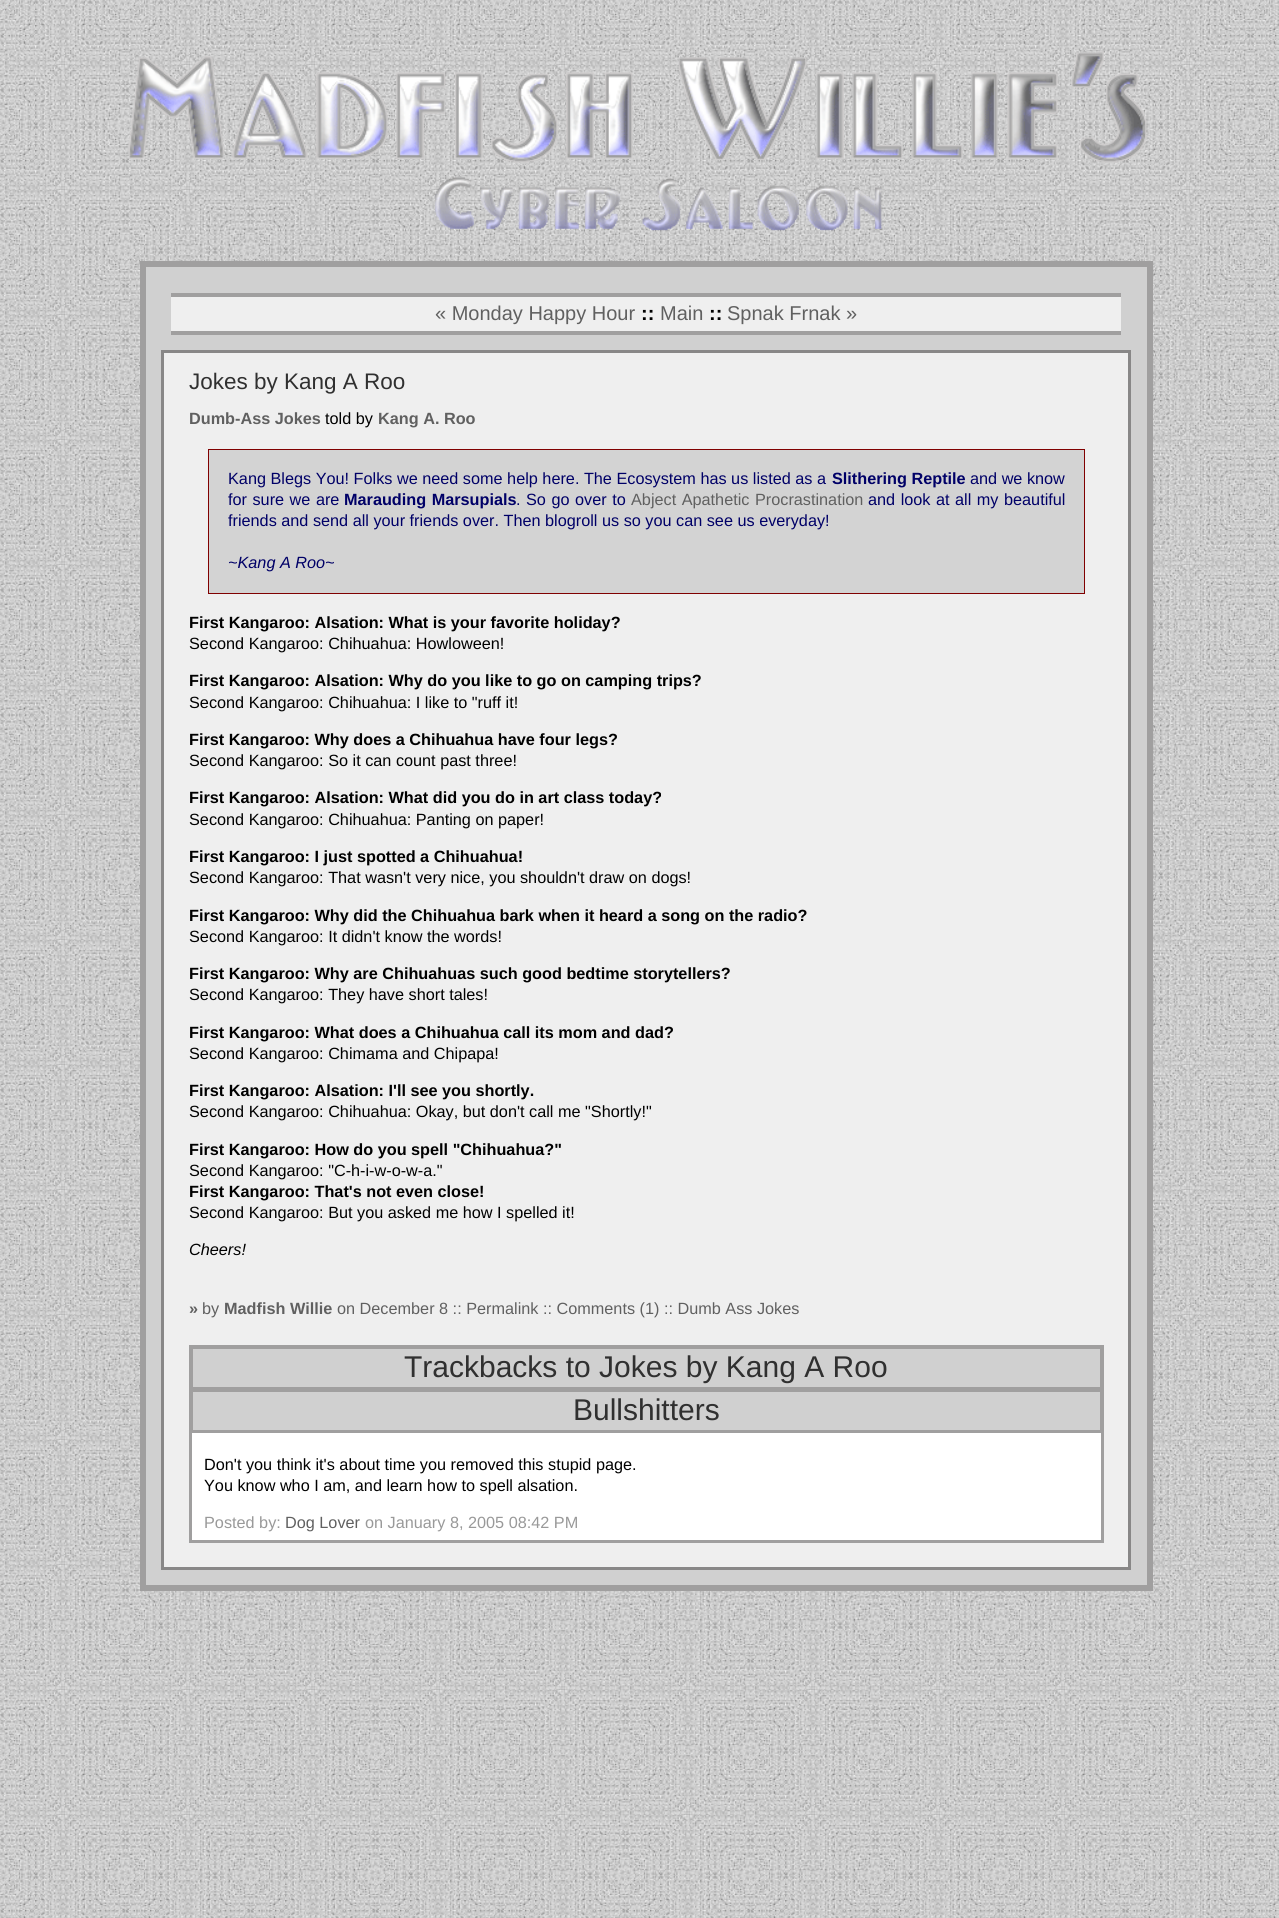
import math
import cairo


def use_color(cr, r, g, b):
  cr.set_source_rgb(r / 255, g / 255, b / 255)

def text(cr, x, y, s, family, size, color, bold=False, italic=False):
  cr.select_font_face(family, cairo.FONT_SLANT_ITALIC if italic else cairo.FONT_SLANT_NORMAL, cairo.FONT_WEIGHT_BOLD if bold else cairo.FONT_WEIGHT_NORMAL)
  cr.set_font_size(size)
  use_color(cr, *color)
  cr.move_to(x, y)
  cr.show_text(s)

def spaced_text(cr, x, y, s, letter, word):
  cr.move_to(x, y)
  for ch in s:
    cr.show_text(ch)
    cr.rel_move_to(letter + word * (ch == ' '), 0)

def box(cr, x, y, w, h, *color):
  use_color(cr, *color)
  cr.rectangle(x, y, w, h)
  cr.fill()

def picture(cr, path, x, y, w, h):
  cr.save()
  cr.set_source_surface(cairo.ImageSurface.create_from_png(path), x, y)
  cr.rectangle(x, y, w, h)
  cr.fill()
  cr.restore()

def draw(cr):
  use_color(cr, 255, 255, 255)
  cr.paint()
  picture(cr, "img_01.png", 0, 0, 1279, 1918)
  picture(cr, "img_02.png", 128, 51, 1019, 180)
  use_color(cr, 208, 208, 208)
  cr.rectangle(143, 264, 1007, 1324)
  cr.fill_preserve()
  use_color(cr, 160, 159, 159)
  cr.set_line_width(6)
  cr.stroke()
  box(cr, 171, 297, 950, 34, 239, 239, 239)
  box(cr, 171, 293, 950, 4, 160, 159, 159)
  box(cr, 171, 331, 950, 4, 160, 159, 159)
  use_color(cr, 239, 239, 239)
  cr.rectangle(162.5, 351.5, 967, 1217)
  cr.fill_preserve()
  use_color(cr, 136, 135, 135)
  cr.set_line_width(3)
  cr.stroke()
  use_color(cr, 211, 211, 211)
  cr.rectangle(208.5, 449.5, 876, 144)
  cr.fill_preserve()
  use_color(cr, 128, 0, 0)
  cr.set_line_width(1)
  cr.stroke()
  use_color(cr, 208, 208, 208)
  cr.rectangle(191, 1347, 911, 42)
  cr.fill_preserve()
  use_color(cr, 160, 159, 159)
  cr.set_line_width(4)
  cr.stroke()
  use_color(cr, 208, 208, 208)
  cr.rectangle(191, 1390, 911, 42)
  cr.fill_preserve()
  use_color(cr, 160, 159, 159)
  cr.stroke()
  use_color(cr, 255, 255, 255)
  cr.rectangle(190.5, 1431.5, 912, 110)
  cr.fill_preserve()
  use_color(cr, 160, 159, 159)
  cr.set_line_width(3)
  cr.stroke()
  text(cr, 435, 320, "« Monday Happy Hour", "Liberation Sans", 20, (96, 96, 96))
  text(cr, 641, 320, "::", "Liberation Sans", 20, (0, 0, 0), bold=True)
  text(cr, 660, 320, "Main", "Liberation Sans", 20, (96, 96, 96))
  text(cr, 709, 320, "::", "Liberation Sans", 20, (0, 0, 0), bold=True)
  text(cr, 727, 320, "Spnak Frnak »", "Liberation Sans", 20, (96, 96, 96))
  text(cr, 189, 389, "Jokes by Kang A Roo", "Liberation Sans", 22.5, (48, 48, 48))
  text(cr, 189, 424, "Dumb-Ass Jokes", "Liberation Sans", 16.25, (96, 96, 96), bold=True)
  text(cr, 325, 424, "told by", "Liberation Sans", 16.25, (0, 0, 0))
  text(cr, 378, 424, "Kang A. Roo", "Liberation Sans", 16.25, (96, 96, 96), bold=True)
  text(cr, 228, 484, "Kang Blegs You! Folks we need some help here. The Ecosystem has us listed as a", "Liberation Sans", 16.25, (0, 0, 103))
  text(cr, 832, 484, "Slithering Reptile", "Liberation Sans", 16.25, (0, 0, 103), bold=True)
  text(cr, 970, 484, "and we know", "Liberation Sans", 16.25, (0, 0, 103))
  spaced_text(cr, 228, 505, "for sure we are", 0, 1)
  cr.select_font_face("Liberation Sans", cairo.FONT_SLANT_NORMAL, cairo.FONT_WEIGHT_BOLD)
  spaced_text(cr, 344, 505, "Marauding Marsupials", 0, 1)
  cr.select_font_face("Liberation Sans")
  spaced_text(cr, 516, 505, ". So go over to", 0, 1)
  use_color(cr, 96, 96, 96)
  spaced_text(cr, 631, 505, "Abject Apathetic Procrastination", 0, 1)
  use_color(cr, 0, 0, 103)
  spaced_text(cr, 868, 505, "and look at all my beautiful", 0, 1)
  text(cr, 228, 526, "friends and send all your friends over. Then blogroll us so you can see us everyday!", "Liberation Sans", 16.25, (0, 0, 103))
  text(cr, 228, 568, "~Kang A Roo~", "Liberation Sans", 16.25, (0, 0, 103), italic=True)
  text(cr, 189, 628, "First Kangaroo: Alsation: What is your favorite holiday?", "Liberation Sans", 16.25, (0, 0, 0), bold=True)
  text(cr, 189, 649, "Second Kangaroo: Chihuahua: Howloween!", "Liberation Sans", 16.25, (0, 0, 0))
  text(cr, 189, 686, "First Kangaroo: Alsation: Why do you like to go on camping trips?", "Liberation Sans", 16.25, (0, 0, 0), bold=True)
  text(cr, 189, 708, "Second Kangaroo: Chihuahua: I like to \"ruff it!", "Liberation Sans", 16.25, (0, 0, 0))
  text(cr, 189, 745, "First Kangaroo: Why does a Chihuahua have four legs?", "Liberation Sans", 16.25, (0, 0, 0), bold=True)
  text(cr, 189, 766, "Second Kangaroo: So it can count past three!", "Liberation Sans", 16.25, (0, 0, 0))
  text(cr, 189, 803, "First Kangaroo: Alsation: What did you do in art class today?", "Liberation Sans", 16.25, (0, 0, 0), bold=True)
  text(cr, 189, 825, "Second Kangaroo: Chihuahua: Panting on paper!", "Liberation Sans", 16.25, (0, 0, 0))
  text(cr, 189, 862, "First Kangaroo: I just spotted a Chihuahua!", "Liberation Sans", 16.25, (0, 0, 0), bold=True)
  text(cr, 189, 883, "Second Kangaroo: That wasn't very nice, you shouldn't draw on dogs!", "Liberation Sans", 16.25, (0, 0, 0))
  text(cr, 189, 921, "First Kangaroo: Why did the Chihuahua bark when it heard a song on the radio?", "Liberation Sans", 16.25, (0, 0, 0), bold=True)
  text(cr, 189, 942, "Second Kangaroo: It didn't know the words!", "Liberation Sans", 16.25, (0, 0, 0))
  text(cr, 189, 979, "First Kangaroo: Why are Chihuahuas such good bedtime storytellers?", "Liberation Sans", 16.25, (0, 0, 0), bold=True)
  text(cr, 189, 1000, "Second Kangaroo: They have short tales!", "Liberation Sans", 16.25, (0, 0, 0))
  text(cr, 189, 1038, "First Kangaroo: What does a Chihuahua call its mom and dad?", "Liberation Sans", 16.25, (0, 0, 0), bold=True)
  text(cr, 189, 1059, "Second Kangaroo: Chimama and Chipapa!", "Liberation Sans", 16.25, (0, 0, 0))
  text(cr, 189, 1096, "First Kangaroo: Alsation: I'll see you shortly.", "Liberation Sans", 16.25, (0, 0, 0), bold=True)
  text(cr, 189, 1117, "Second Kangaroo: Chihuahua: Okay, but don't call me \"Shortly!\"", "Liberation Sans", 16.25, (0, 0, 0))
  text(cr, 189, 1155, "First Kangaroo: How do you spell \"Chihuahua?\"", "Liberation Sans", 16.25, (0, 0, 0), bold=True)
  text(cr, 189, 1176, "Second Kangaroo: \"C-h-i-w-o-w-a.\"", "Liberation Sans", 16.25, (0, 0, 0))
  text(cr, 189, 1197, "First Kangaroo: That's not even close!", "Liberation Sans", 16.25, (0, 0, 0), bold=True)
  text(cr, 189, 1218, "Second Kangaroo: But you asked me how I spelled it!", "Liberation Sans", 16.25, (0, 0, 0))
  text(cr, 189, 1255, "Cheers!", "Liberation Sans", 16.25, (0, 0, 0), italic=True)
  text(cr, 189, 1314, "»", "Liberation Sans", 16.25, (96, 96, 96), bold=True)
  text(cr, 202, 1314, "by", "Liberation Sans", 16.25, (96, 96, 96))
  text(cr, 224, 1314, "Madfish Willie", "Liberation Sans", 16.25, (96, 96, 96), bold=True)
  text(cr, 337, 1314, "on December 8 :: Permalink :: Comments (1) :: Dumb Ass Jokes", "Liberation Sans", 16.25, (96, 96, 96))
  text(cr, 404, 1377, "Trackbacks to Jokes by Kang A Roo", "Liberation Sans", 30, (48, 48, 48))
  text(cr, 573, 1420, "Bullshitters", "Liberation Sans", 30, (48, 48, 48))
  text(cr, 204, 1470, "Don't you think it's about time you removed this stupid page.", "Liberation Sans", 16.25, (0, 0, 0))
  text(cr, 204, 1491, "You know who I am, and learn how to spell alsation.", "Liberation Sans", 16.25, (0, 0, 0))
  text(cr, 204, 1528, "Posted by:", "Liberation Sans", 16.25, (153, 153, 153))
  text(cr, 285, 1528, "Dog Lover", "Liberation Sans", 16.25, (96, 96, 96))
  text(cr, 365, 1528, "on January 8, 2005 08:42 PM", "Liberation Sans", 16.25, (153, 153, 153))


surface = cairo.ImageSurface(cairo.FORMAT_RGB24, 1279, 1918)
cr = cairo.Context(surface)
options = cairo.FontOptions()
options.set_hint_metrics(cairo.HINT_METRICS_OFF)
options.set_hint_style(cairo.HINT_STYLE_NONE)
cr.set_font_options(options)
cr.set_miter_limit(4)
draw(cr)
surface.write_to_png("out.png")
